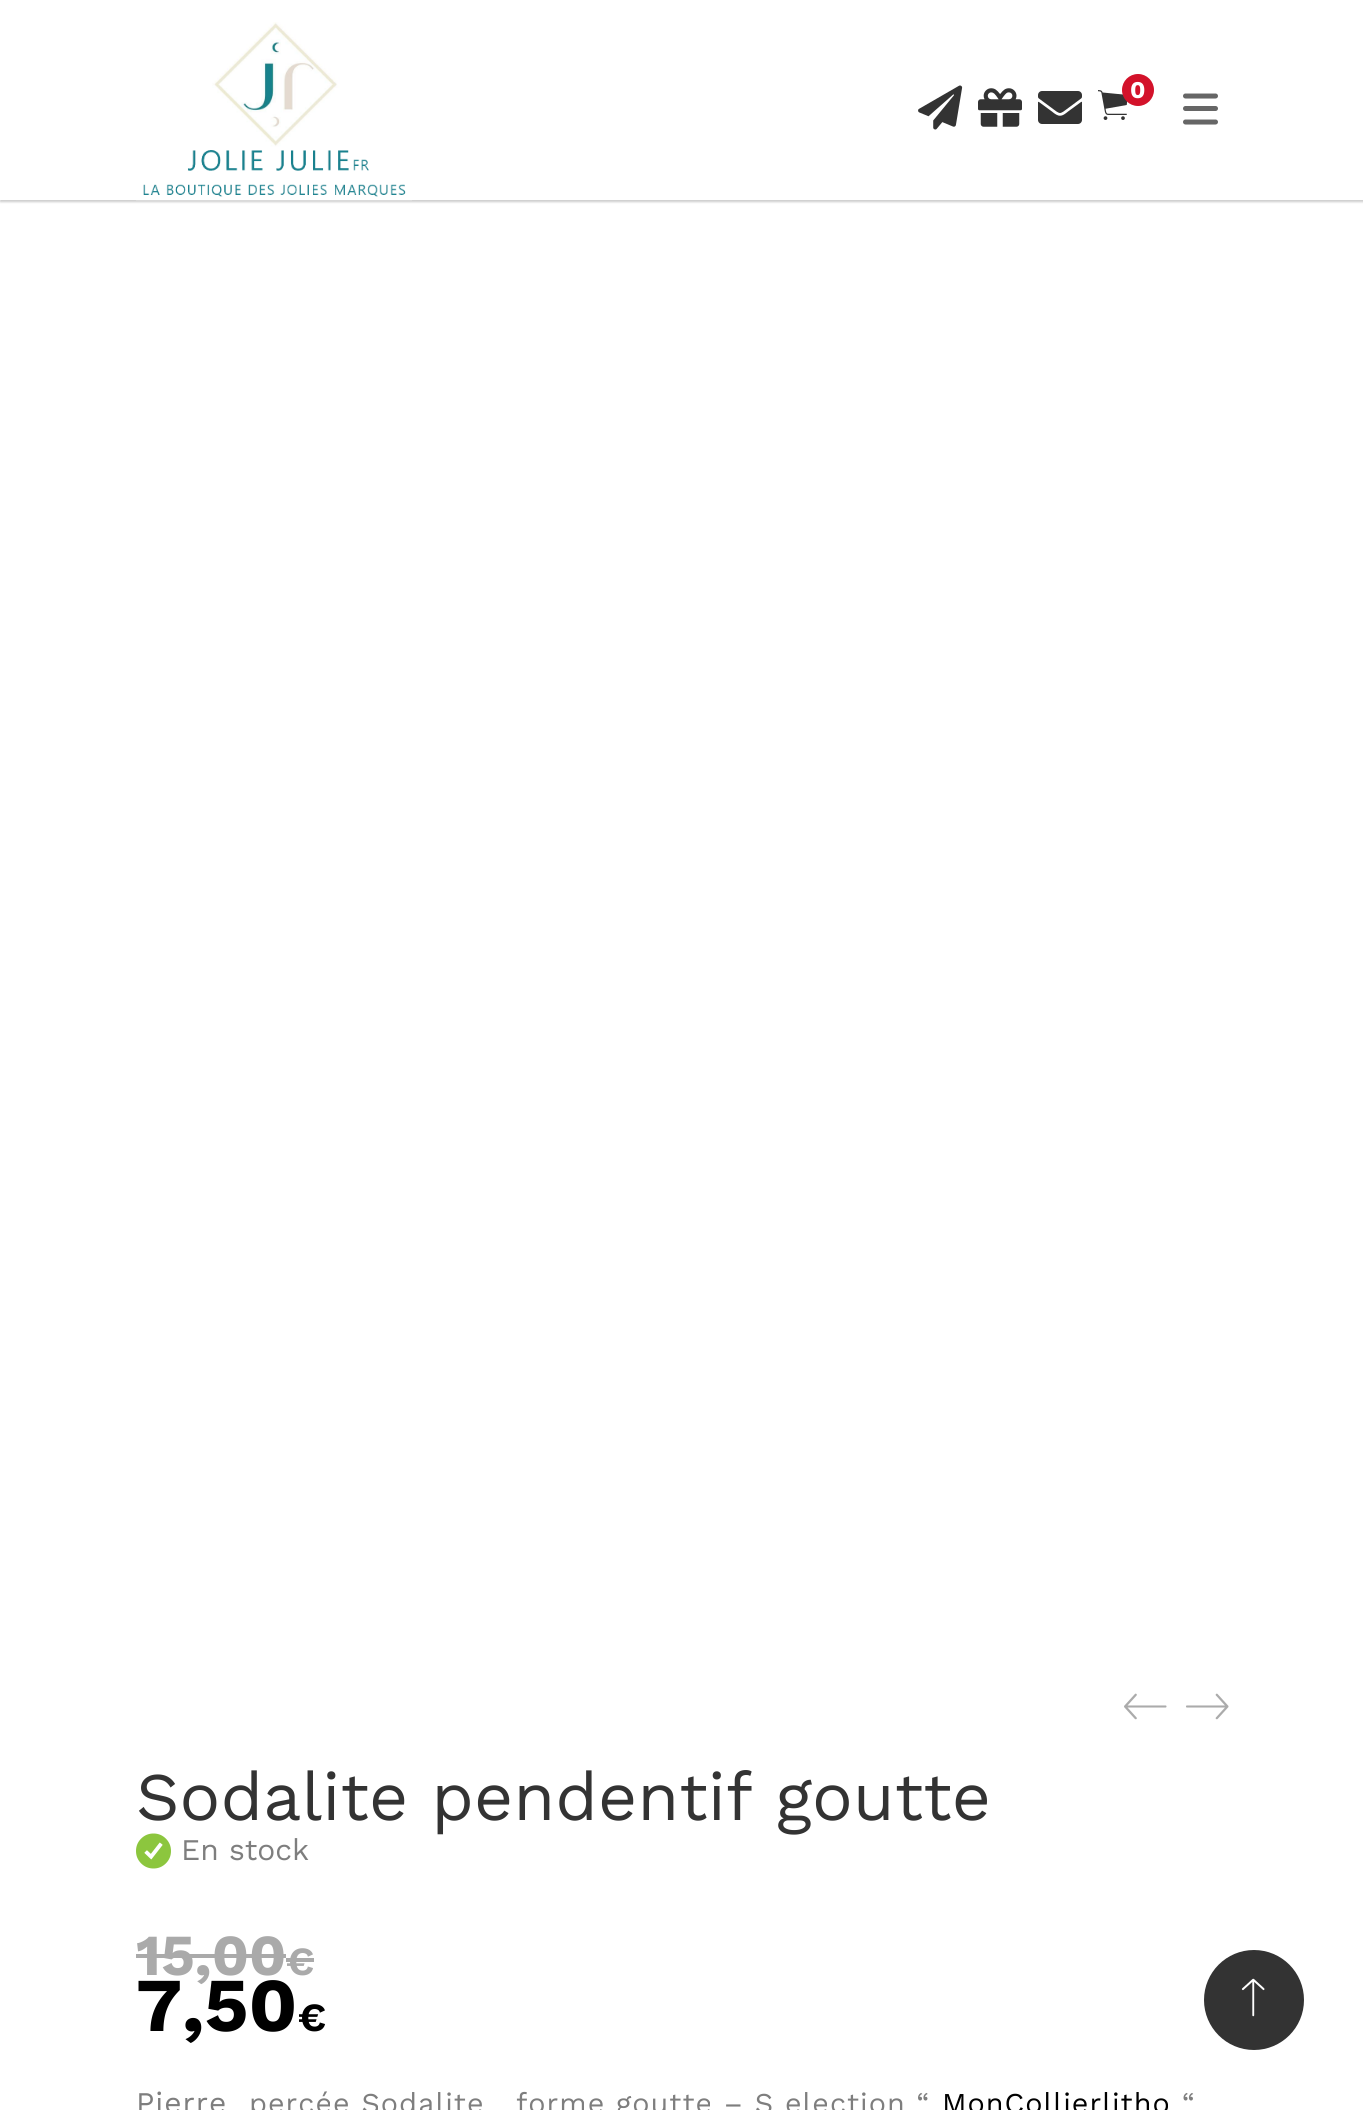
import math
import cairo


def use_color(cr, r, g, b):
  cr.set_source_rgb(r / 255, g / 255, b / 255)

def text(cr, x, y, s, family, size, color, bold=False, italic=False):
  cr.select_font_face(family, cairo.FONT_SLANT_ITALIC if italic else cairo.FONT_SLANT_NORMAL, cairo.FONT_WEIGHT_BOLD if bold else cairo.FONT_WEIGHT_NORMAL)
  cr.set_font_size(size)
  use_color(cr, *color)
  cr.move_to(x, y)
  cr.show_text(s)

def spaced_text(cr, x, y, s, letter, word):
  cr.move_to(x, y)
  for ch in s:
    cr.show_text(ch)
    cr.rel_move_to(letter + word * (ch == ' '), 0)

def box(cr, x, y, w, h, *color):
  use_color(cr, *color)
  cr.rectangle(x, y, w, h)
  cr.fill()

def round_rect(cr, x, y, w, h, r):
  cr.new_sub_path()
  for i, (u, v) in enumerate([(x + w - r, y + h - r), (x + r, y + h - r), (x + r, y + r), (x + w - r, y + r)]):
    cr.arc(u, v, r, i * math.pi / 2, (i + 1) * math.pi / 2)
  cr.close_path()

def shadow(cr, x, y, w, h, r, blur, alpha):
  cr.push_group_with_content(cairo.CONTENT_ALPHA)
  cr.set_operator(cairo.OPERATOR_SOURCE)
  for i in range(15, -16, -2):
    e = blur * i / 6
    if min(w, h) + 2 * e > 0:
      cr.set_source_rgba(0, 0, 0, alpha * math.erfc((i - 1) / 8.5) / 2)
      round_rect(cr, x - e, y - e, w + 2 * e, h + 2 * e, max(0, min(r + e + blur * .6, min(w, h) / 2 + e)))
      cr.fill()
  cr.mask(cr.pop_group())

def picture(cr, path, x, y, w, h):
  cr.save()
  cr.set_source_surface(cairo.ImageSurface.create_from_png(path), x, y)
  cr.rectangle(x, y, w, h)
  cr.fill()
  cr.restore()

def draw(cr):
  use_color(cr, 255, 255, 255)
  cr.paint()
  use_color(cr, 0, 0, 0)
  shadow(cr, 0, 2, 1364, 200, 0, 1, 0.2)
  box(cr, 0, 0, 1363, 200, 255, 255, 255)
  picture(cr, "img_01.png", 136, 22, 276, 179)
  picture(cr, "img_02.png", 918, 85, 45, 45)
  picture(cr, "img_03.png", 978, 88, 44, 39)
  picture(cr, "img_04.png", 1038, 91, 44, 33)
  picture(cr, "img_05.png", 1098, 90, 30, 30)
  use_color(cr, 211, 18, 42)
  cr.arc(1138, 90, 15, 0, 2 * math.pi)
  cr.fill_preserve()
  cr.stroke()
  cr.new_path()
  cr.move_to(1185.5, 96)
  cr.line_to(1215.5, 96)
  cr.move_to(1185.5, 108.5)
  cr.line_to(1215.5, 108.5)
  cr.move_to(1185.5, 122)
  cr.line_to(1215.5, 122)
  use_color(cr, 102, 102, 102)
  cr.set_line_width(5)
  cr.set_line_cap(cairo.LINE_CAP_ROUND)
  cr.stroke()
  picture(cr, "img_06.png", 1124, 1693, 43, 27)
  picture(cr, "img_07.png", 1186, 1693, 43, 27)
  box(cr, 136, 1954, 150, 4, 170, 170, 170)
  box(cr, 286, 1958, 28, 4, 170, 170, 170)
  use_color(cr, 51, 51, 51)
  cr.arc(1254, 2000, 50, 0, 2 * math.pi)
  cr.fill()
  picture(cr, "img_09.png", 1241, 1978, 24, 39)
  text(cr, 1130, 98, "0", "Work Sans", 24, (255, 255, 255), bold=True)
  text(cr, 136, 1820, "Sodalite pendentif goutte", "Work Sans", 68, (51, 51, 51))
  picture(cr, "img_08.png", 136, 1833, 35, 36)
  text(cr, 181, 1860, "En stock", "Work Sans", 30, (126, 126, 126))
  text(cr, 136, 1975, "15,00", "Work Sans", 58, (170, 170, 170), bold=True)
  text(cr, 286, 1975, "€", "Work Sans", 40, (170, 170, 170), bold=True)
  text(cr, 136, 2031, "7,50", "Work Sans", 76, (0, 0, 0), bold=True)
  text(cr, 298, 2031, "€", "Work Sans", 40, (0, 0, 0), bold=True)
  cr.select_font_face("Work Sans")
  cr.set_font_size(30)
  use_color(cr, 126, 126, 126)
  spaced_text(cr, 136, 2113, "Pierre", 1, 0)
  cr.set_font_size(28.75)
  spaced_text(cr, 249, 2113, "percée Sodalite", 1, 0)
  spaced_text(cr, 516, 2113, "forme goutte – S election “", 1, 0)
  use_color(cr, 0, 0, 0)
  spaced_text(cr, 942, 2113, "MonCollierlitho", 1, 0)
  use_color(cr, 126, 126, 126)
  spaced_text(cr, 1182, 2113, "“", 1, 0)


surface = cairo.ImageSurface(cairo.FORMAT_RGB24, 1363, 2110)
cr = cairo.Context(surface)
options = cairo.FontOptions()
options.set_hint_metrics(cairo.HINT_METRICS_OFF)
options.set_hint_style(cairo.HINT_STYLE_NONE)
cr.set_font_options(options)
cr.set_miter_limit(4)
draw(cr)
surface.write_to_png("out.png")
